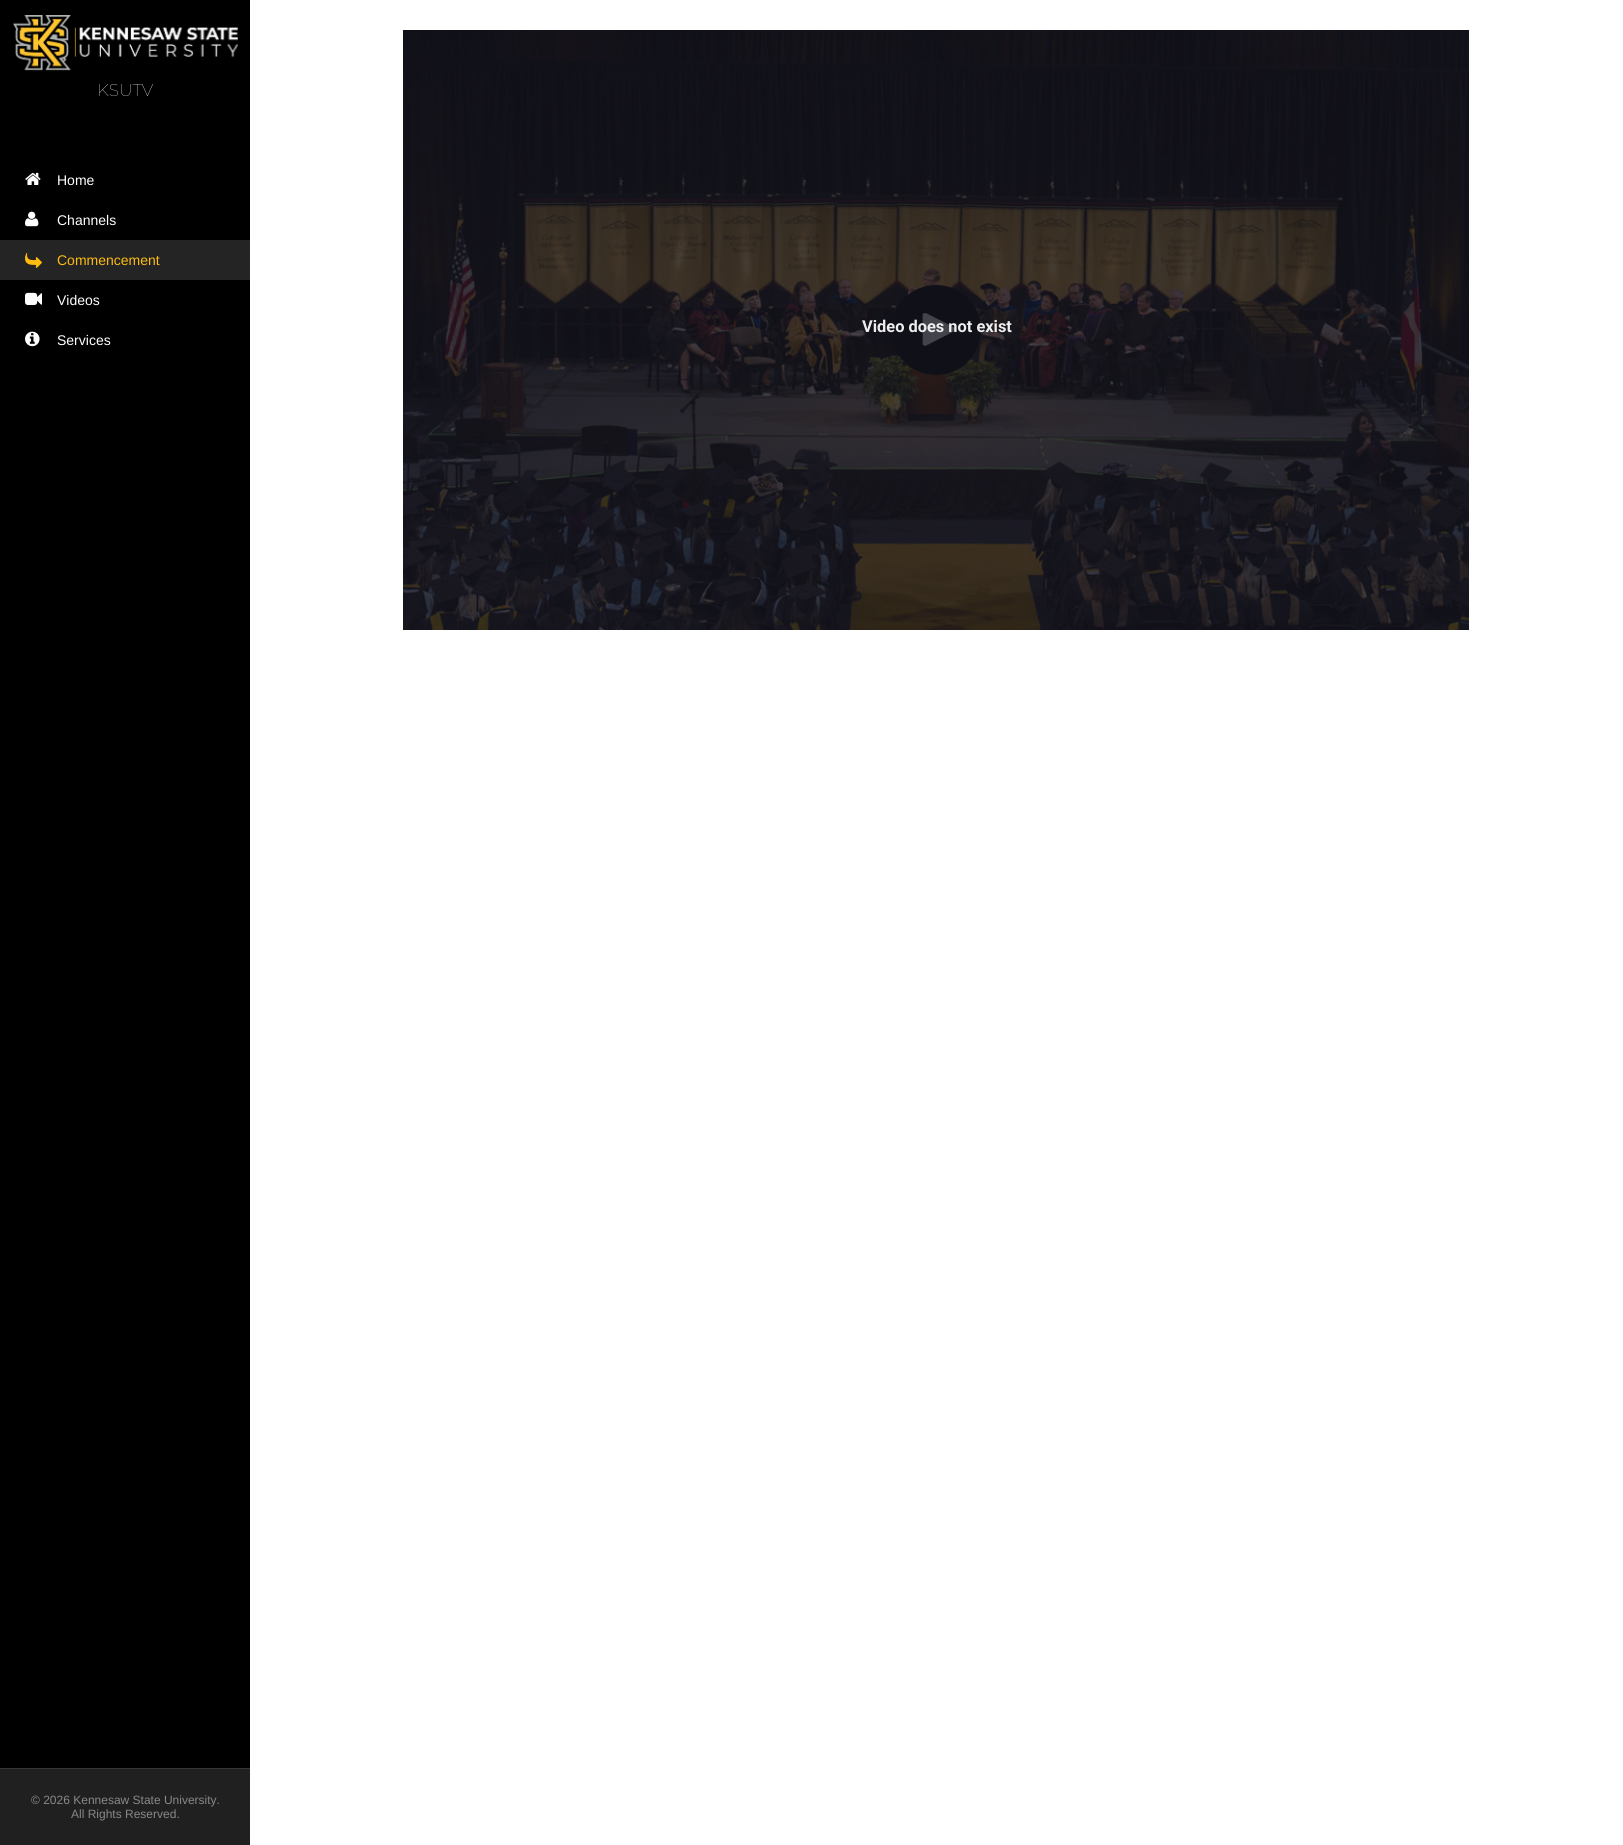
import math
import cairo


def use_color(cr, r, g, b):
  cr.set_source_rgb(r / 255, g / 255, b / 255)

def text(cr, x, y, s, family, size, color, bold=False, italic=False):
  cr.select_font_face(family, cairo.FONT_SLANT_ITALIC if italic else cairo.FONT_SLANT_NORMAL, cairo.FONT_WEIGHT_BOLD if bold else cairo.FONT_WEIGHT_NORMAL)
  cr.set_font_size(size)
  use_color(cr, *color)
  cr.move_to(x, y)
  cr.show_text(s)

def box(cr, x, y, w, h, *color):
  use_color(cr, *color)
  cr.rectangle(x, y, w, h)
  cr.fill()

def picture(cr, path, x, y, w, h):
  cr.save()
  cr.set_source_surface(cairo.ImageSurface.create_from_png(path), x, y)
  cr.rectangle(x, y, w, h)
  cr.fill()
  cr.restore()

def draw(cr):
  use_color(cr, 255, 255, 255)
  cr.paint()
  box(cr, 0, 0, 250, 1768, 0, 0, 0)
  picture(cr, "img_01.png", 13, 15, 225, 56)
  picture(cr, "img_02.png", 25, 172, 16, 13)
  picture(cr, "img_03.png", 25, 211, 14, 16)
  box(cr, 0, 240, 250, 40, 36, 36, 36)
  picture(cr, "img_04.png", 25, 252, 17, 16)
  picture(cr, "img_05.png", 25, 292, 17, 13)
  picture(cr, "img_06.png", 25, 331, 15, 16)
  box(cr, 0, 1769, 250, 76, 32, 32, 32)
  box(cr, 0, 1768, 250, 1, 53, 53, 53)
  picture(cr, "img_07.png", 403, 30, 1066, 600)
  use_color(cr, 16, 16, 24)
  cr.arc(936, 330, 45, 0, 2 * math.pi)
  cr.fill()
  picture(cr, "img_08.png", 922, 313, 34, 33)
  text(cr, 97, 96, "KSUTV", "Montserrat Thin", 17, (255, 255, 255))
  text(cr, 57, 185, "Home", "Liberation Sans", 14, (255, 255, 255))
  text(cr, 57, 225, "Channels", "Liberation Sans", 14, (255, 255, 255))
  text(cr, 57, 265, "Commencement", "Liberation Sans", 14, (254, 188, 17))
  text(cr, 57, 305, "Videos", "Liberation Sans", 14, (255, 255, 255))
  text(cr, 57, 345, "Services", "Liberation Sans", 14, (255, 255, 255))
  text(cr, 31, 1804, "© 2026 Kennesaw State University.", "Liberation Sans", 12, (136, 136, 136))
  text(cr, 71, 1818, "All Rights Reserved.", "Liberation Sans", 12, (136, 136, 136))
  text(cr, 862, 332, "Video does not exist", "Roboto", 16.4, (238, 238, 238), bold=True)


surface = cairo.ImageSurface(cairo.FORMAT_RGB24, 1623, 1845)
cr = cairo.Context(surface)
options = cairo.FontOptions()
options.set_hint_metrics(cairo.HINT_METRICS_OFF)
options.set_hint_style(cairo.HINT_STYLE_NONE)
cr.set_font_options(options)
cr.set_miter_limit(4)
draw(cr)
surface.write_to_png("out.png")
